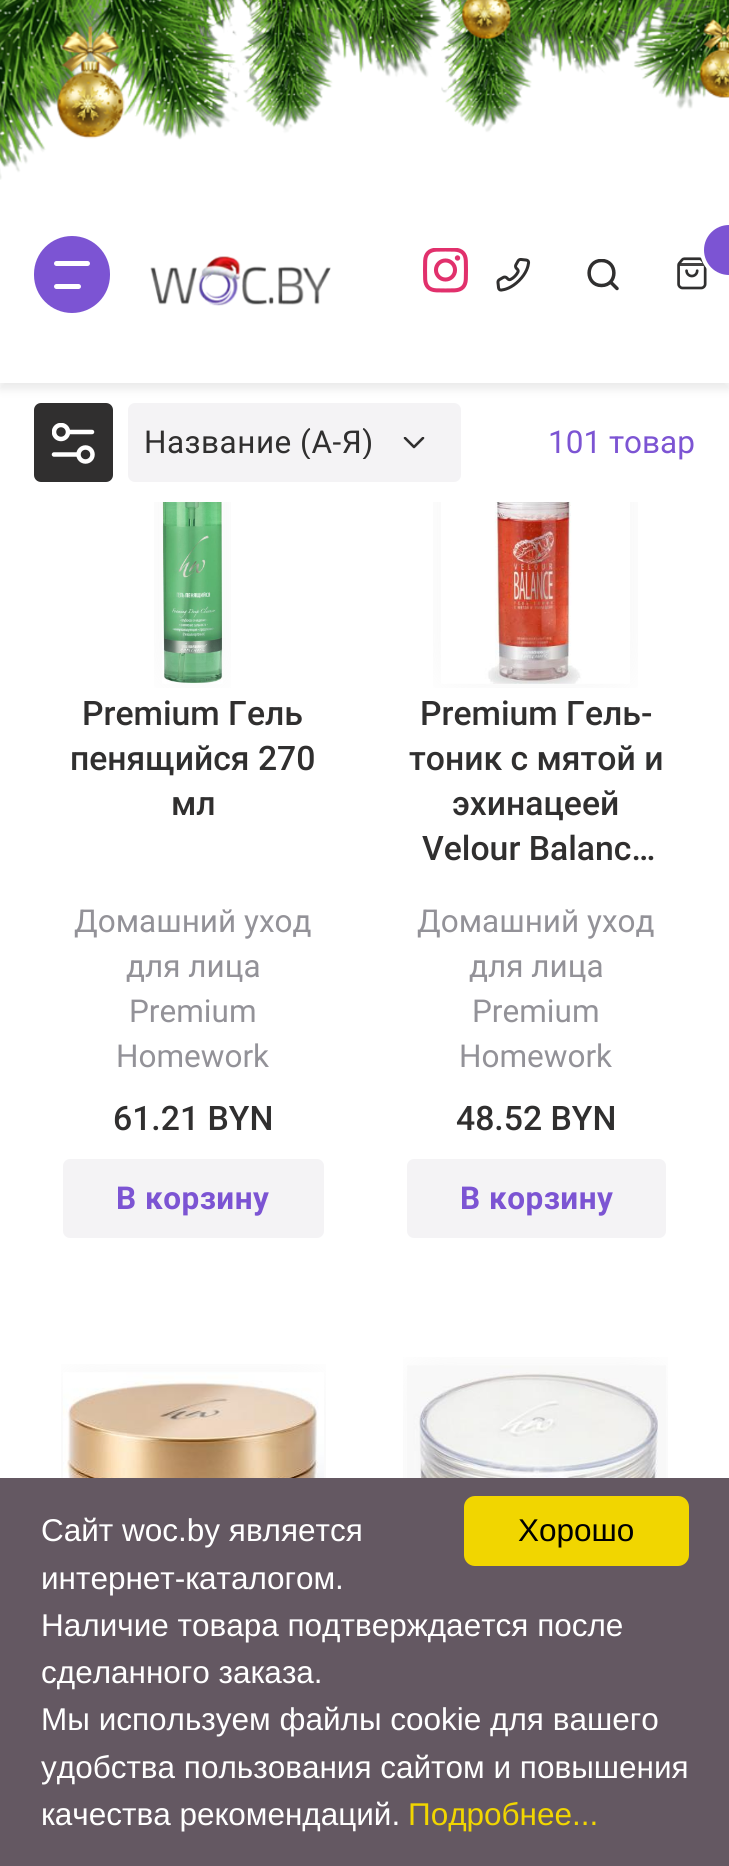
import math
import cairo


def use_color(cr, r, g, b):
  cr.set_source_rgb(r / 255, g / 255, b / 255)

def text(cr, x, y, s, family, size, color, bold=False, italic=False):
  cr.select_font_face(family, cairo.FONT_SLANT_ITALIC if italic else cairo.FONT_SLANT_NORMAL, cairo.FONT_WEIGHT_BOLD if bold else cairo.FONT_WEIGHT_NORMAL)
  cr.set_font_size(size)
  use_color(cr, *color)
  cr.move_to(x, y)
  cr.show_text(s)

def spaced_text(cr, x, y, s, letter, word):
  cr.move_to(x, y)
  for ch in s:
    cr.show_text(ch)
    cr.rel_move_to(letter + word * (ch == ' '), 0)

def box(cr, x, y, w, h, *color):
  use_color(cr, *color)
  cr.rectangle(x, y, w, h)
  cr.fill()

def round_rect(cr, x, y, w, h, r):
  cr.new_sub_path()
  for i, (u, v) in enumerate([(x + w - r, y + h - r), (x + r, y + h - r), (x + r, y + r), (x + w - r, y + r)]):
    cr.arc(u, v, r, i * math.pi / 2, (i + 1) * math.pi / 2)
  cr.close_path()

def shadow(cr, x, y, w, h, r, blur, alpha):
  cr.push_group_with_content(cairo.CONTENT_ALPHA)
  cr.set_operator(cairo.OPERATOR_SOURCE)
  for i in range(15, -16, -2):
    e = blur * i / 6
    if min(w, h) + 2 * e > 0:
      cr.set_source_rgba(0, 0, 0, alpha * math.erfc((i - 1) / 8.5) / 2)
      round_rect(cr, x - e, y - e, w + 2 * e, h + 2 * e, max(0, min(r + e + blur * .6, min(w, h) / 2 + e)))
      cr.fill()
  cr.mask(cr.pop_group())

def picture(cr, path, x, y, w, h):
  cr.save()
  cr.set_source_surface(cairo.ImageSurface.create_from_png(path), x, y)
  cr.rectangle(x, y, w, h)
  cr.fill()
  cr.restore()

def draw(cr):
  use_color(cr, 255, 255, 255)
  cr.paint()
  use_color(cr, 48, 47, 47)
  round_rect(cr, 34, 403, 79, 79, 7)
  cr.fill()
  use_color(cr, 244, 243, 245)
  round_rect(cr, 128, 403, 333, 79, 7)
  cr.fill()
  use_color(cr, 168, 168, 168)
  shadow(cr, 0, 164, 729, 225, 0, 4.5, 0.25)
  picture(cr, "img_01.png", 0, 0, 729, 180)
  box(cr, 0, 180, 729, 203, 255, 255, 255)
  use_color(cr, 124, 84, 211)
  round_rect(cr, 34, 236, 76, 77, 38)
  cr.fill()
  use_color(cr, 255, 255, 255)
  round_rect(cr, 54, 261, 36, 5, 2.5)
  cr.fill()
  round_rect(cr, 54, 284, 27, 5, 2.5)
  cr.fill()
  picture(cr, "img_02.png", 150, 256, 181, 50)
  picture(cr, "img_03.png", 423, 248, 45, 45)
  picture(cr, "img_04.png", 496, 258, 35, 34)
  cr.save()
  cr.rectangle(587, 259, 32, 31)
  cr.clip()
  cr.new_path()
  cr.move_to(601.5, 285.5)
  cr.curve_to(618, 285.5, 618, 260.5, 601.5, 260.5)
  cr.curve_to(585, 260.5, 585, 285.5, 601.5, 285.5)
  cr.close_path()
  use_color(cr, 48, 47, 47)
  cr.set_line_width(3.5)
  cr.set_line_cap(cairo.LINE_CAP_ROUND)
  cr.set_line_join(cairo.LINE_JOIN_ROUND)
  cr.stroke()
  cr.restore()
  cr.new_path()
  cr.move_to(617, 288.5)
  cr.line_to(611.5, 283)
  use_color(cr, 48, 47, 47)
  cr.set_line_width(3.5)
  cr.set_line_cap(cairo.LINE_CAP_ROUND)
  cr.set_line_join(cairo.LINE_JOIN_ROUND)
  cr.stroke()
  picture(cr, "img_05.png", 677, 257, 30, 33)
  cr.arc(729, 250, 26.5, 0, 2 * math.pi)
  use_color(cr, 255, 255, 255)
  cr.set_line_width(5)
  cr.set_line_cap(cairo.LINE_CAP_BUTT)
  cr.set_line_join(cairo.LINE_JOIN_MITER)
  cr.stroke()
  use_color(cr, 124, 84, 211)
  cr.arc(729, 250, 25, 0, 2 * math.pi)
  cr.fill()
  cr.new_path()
  cr.move_to(54, 454.5)
  cr.line_to(76.5, 454.5)
  cr.move_to(70, 432)
  cr.line_to(92, 432)
  use_color(cr, 255, 255, 255)
  cr.set_line_width(4.5)
  cr.set_line_cap(cairo.LINE_CAP_ROUND)
  cr.stroke()
  cr.arc(85.5, 454.5, 7, 0, 2 * math.pi)
  cr.set_line_cap(cairo.LINE_CAP_BUTT)
  cr.stroke()
  cr.save()
  cr.rectangle(52, 423, 43, 41)
  cr.clip()
  cr.arc(61, 432, 7, 0, 2 * math.pi)
  cr.stroke()
  cr.restore()
  cr.save()
  cr.rectangle(403, 437, 22, 13)
  cr.clip()
  cr.new_path()
  cr.move_to(405, 438)
  cr.line_to(414, 447)
  cr.line_to(423, 438)
  use_color(cr, 48, 47, 47)
  cr.set_line_width(2.6)
  cr.set_line_cap(cairo.LINE_CAP_ROUND)
  cr.set_line_join(cairo.LINE_JOIN_ROUND)
  cr.stroke()
  cr.restore()
  picture(cr, "img_06.png", 154, 502, 77, 186)
  use_color(cr, 244, 243, 245)
  round_rect(cr, 63, 1159, 261, 79, 7)
  cr.fill()
  picture(cr, "img_07.png", 433, 502, 205, 186)
  round_rect(cr, 407, 1159, 259, 79, 7)
  cr.fill()
  picture(cr, "img_08.png", 61, 1364, 265, 114)
  picture(cr, "img_09.png", 403, 1357, 265, 121)
  box(cr, 0, 1478, 729, 388, 100, 88, 98)
  use_color(cr, 241, 214, 0)
  round_rect(cr, 464, 1496, 225, 70, 11)
  cr.fill()
  cr.save()
  cr.rectangle(144, 428, 230, 31)
  cr.clip()
  cr.select_font_face("Roboto")
  cr.set_font_size(31.5)
  use_color(cr, 48, 47, 47)
  spaced_text(cr, 144, 453, "Название (А-Я)", 0.5, 0)
  cr.restore()
  text(cr, 548, 453, "101 товар", "Roboto", 31.5, (124, 84, 211))
  text(cr, 82, 725, "Premium Гель", "Roboto Medium", 33.75, (48, 47, 47))
  text(cr, 70, 770, "пенящийся 270", "Roboto Medium", 33.75, (48, 47, 47))
  text(cr, 171, 815, "мл", "Roboto Medium", 33.75, (48, 47, 47))
  text(cr, 74, 932, "Домашний уход", "Roboto", 31.5, (147, 146, 152))
  text(cr, 126, 977, "для лица", "Roboto", 31.5, (147, 146, 152))
  text(cr, 129, 1022, "Premium", "Roboto", 31.5, (147, 146, 152))
  text(cr, 116, 1067, "Homework", "Roboto", 31.5, (147, 146, 152))
  text(cr, 113, 1130, "61.21 BYN", "Roboto Medium", 33.75, (48, 47, 47))
  cr.select_font_face("Roboto", cairo.FONT_SLANT_NORMAL, cairo.FONT_WEIGHT_BOLD)
  cr.set_font_size(31.5)
  use_color(cr, 124, 84, 211)
  spaced_text(cr, 116, 1209, "В корзину", 0.5, 0)
  text(cr, 420, 725, "Premium Гель-", "Roboto Medium", 33.75, (48, 47, 47))
  text(cr, 409, 770, "тоник с мятой и", "Roboto Medium", 33.75, (48, 47, 47))
  text(cr, 452, 815, "эхинацеей", "Roboto Medium", 33.75, (48, 47, 47))
  text(cr, 422, 860, "Velour Balanc…", "Roboto Medium", 33.75, (48, 47, 47))
  text(cr, 417, 932, "Домашний уход", "Roboto", 31.5, (147, 146, 152))
  text(cr, 469, 977, "для лица", "Roboto", 31.5, (147, 146, 152))
  text(cr, 472, 1022, "Premium", "Roboto", 31.5, (147, 146, 152))
  text(cr, 459, 1067, "Homework", "Roboto", 31.5, (147, 146, 152))
  text(cr, 456, 1130, "48.52 BYN", "Roboto Medium", 33.75, (48, 47, 47))
  cr.select_font_face("Roboto", cairo.FONT_SLANT_NORMAL, cairo.FONT_WEIGHT_BOLD)
  cr.set_font_size(31.5)
  use_color(cr, 124, 84, 211)
  spaced_text(cr, 460, 1209, "В корзину", 0.5, 0)
  text(cr, 41, 1541, "Сайт woc.by является", "Liberation Sans", 31.5, (255, 255, 255))
  text(cr, 41, 1589, "интернет-каталогом.", "Liberation Sans", 31.5, (255, 255, 255))
  text(cr, 41, 1636, "Наличие товара подтверждается после", "Liberation Sans", 31.5, (255, 255, 255))
  text(cr, 41, 1683, "сделанного заказа.", "Liberation Sans", 31.5, (255, 255, 255))
  text(cr, 41, 1730, "Мы используем файлы cookie для вашего", "Liberation Sans", 31.5, (255, 255, 255))
  text(cr, 41, 1778, "удобства пользования сайтом и повышения", "Liberation Sans", 31.5, (255, 255, 255))
  text(cr, 41, 1825, "качества рекомендаций.", "Liberation Sans", 31.5, (255, 255, 255))
  text(cr, 408, 1825, "Подробнее...", "Liberation Sans", 31.5, (241, 214, 0))
  text(cr, 518, 1541, "Хорошо", "Liberation Sans", 31.5, (0, 0, 0))


surface = cairo.ImageSurface(cairo.FORMAT_RGB24, 729, 1866)
cr = cairo.Context(surface)
options = cairo.FontOptions()
options.set_hint_metrics(cairo.HINT_METRICS_OFF)
options.set_hint_style(cairo.HINT_STYLE_NONE)
cr.set_font_options(options)
cr.set_miter_limit(4)
draw(cr)
surface.write_to_png("out.png")
